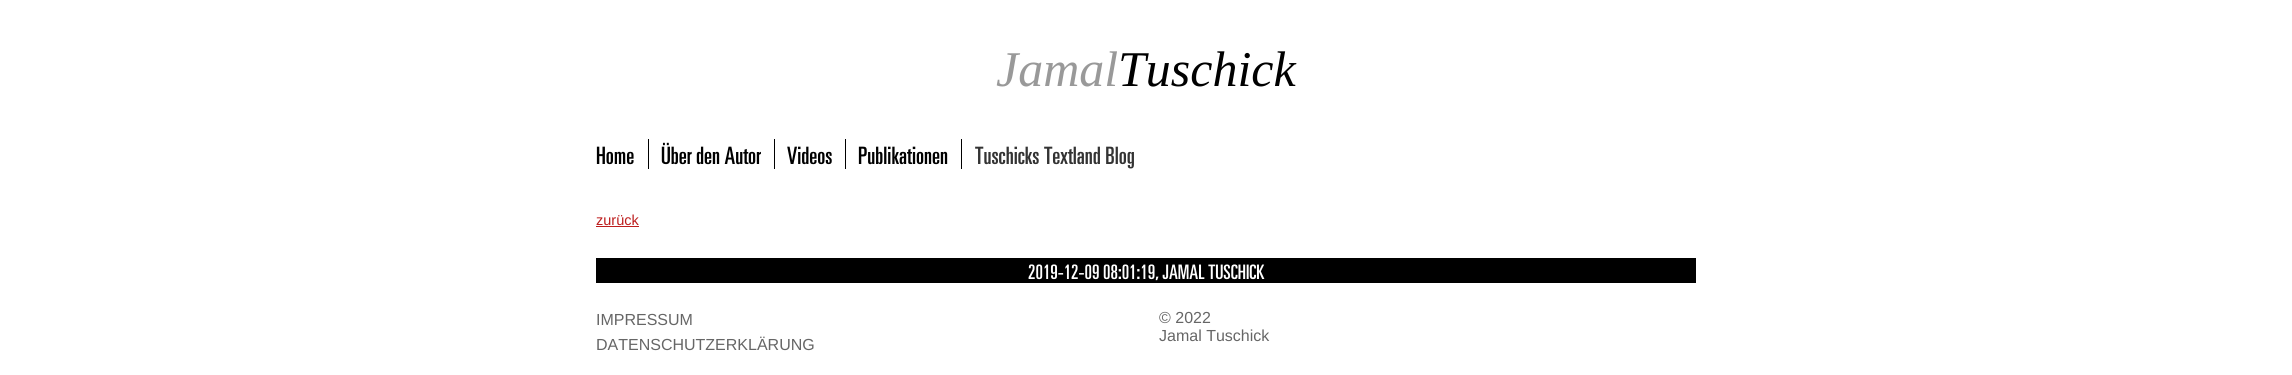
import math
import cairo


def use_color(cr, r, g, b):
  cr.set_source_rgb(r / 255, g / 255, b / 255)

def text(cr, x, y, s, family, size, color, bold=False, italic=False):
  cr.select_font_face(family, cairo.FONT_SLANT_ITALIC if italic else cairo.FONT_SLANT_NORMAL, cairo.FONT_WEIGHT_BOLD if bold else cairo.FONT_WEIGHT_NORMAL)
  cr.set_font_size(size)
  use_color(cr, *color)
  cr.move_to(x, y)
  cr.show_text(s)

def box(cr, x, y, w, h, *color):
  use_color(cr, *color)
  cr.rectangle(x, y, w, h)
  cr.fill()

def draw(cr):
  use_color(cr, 255, 255, 255)
  cr.paint()
  box(cr, 648, 139, 1, 30, 0, 0, 0)
  box(cr, 774, 139, 1, 30, 0, 0, 0)
  box(cr, 845, 139, 1, 30, 0, 0, 0)
  box(cr, 961, 139, 1, 30, 0, 0, 0)
  box(cr, 596, 226, 43, 1, 189, 29, 29)
  box(cr, 596, 258, 1100, 25, 0, 0, 0)
  text(cr, 996, 86, "Jamal", "Liberation Serif", 50, (153, 153, 153), italic=True)
  text(cr, 1118, 86, "Tuschick", "Liberation Serif", 50, (0, 0, 0), italic=True)
  text(cr, 596, 164, "Home", "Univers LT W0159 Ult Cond", 24, (0, 0, 0))
  text(cr, 661, 164, "Über den Autor", "Univers LT W0159 Ult Cond", 24, (0, 0, 0))
  text(cr, 787, 164, "Videos", "Univers LT W0159 Ult Cond", 24, (0, 0, 0))
  text(cr, 858, 164, "Publikationen", "Univers LT W0159 Ult Cond", 24, (0, 0, 0))
  text(cr, 975, 164, "Tuschicks Textland Blog", "Univers LT W0159 Ult Cond", 24, (51, 51, 51))
  text(cr, 596, 225, "zurück", "Liberation Sans", 14.5, (189, 29, 29))
  text(cr, 1028, 279, "2019-12-09 08:01:19, JAMAL TUSCHICK", "Univers LT W0159 Ult Cond", 20, (255, 255, 255))
  text(cr, 596, 325, "IMPRESSUM", "Liberation Sans", 16, (102, 102, 102))
  text(cr, 596, 350, "DATENSCHUTZERKLÄRUNG", "Liberation Sans", 16, (102, 102, 102))
  text(cr, 1159, 323, "© 2022", "Liberation Sans", 16, (102, 102, 102))
  text(cr, 1159, 341, "Jamal Tuschick", "Liberation Sans", 16, (102, 102, 102))


surface = cairo.ImageSurface(cairo.FORMAT_RGB24, 2292, 375)
cr = cairo.Context(surface)
options = cairo.FontOptions()
options.set_hint_metrics(cairo.HINT_METRICS_OFF)
options.set_hint_style(cairo.HINT_STYLE_NONE)
cr.set_font_options(options)
cr.set_miter_limit(4)
draw(cr)
surface.write_to_png("out.png")
